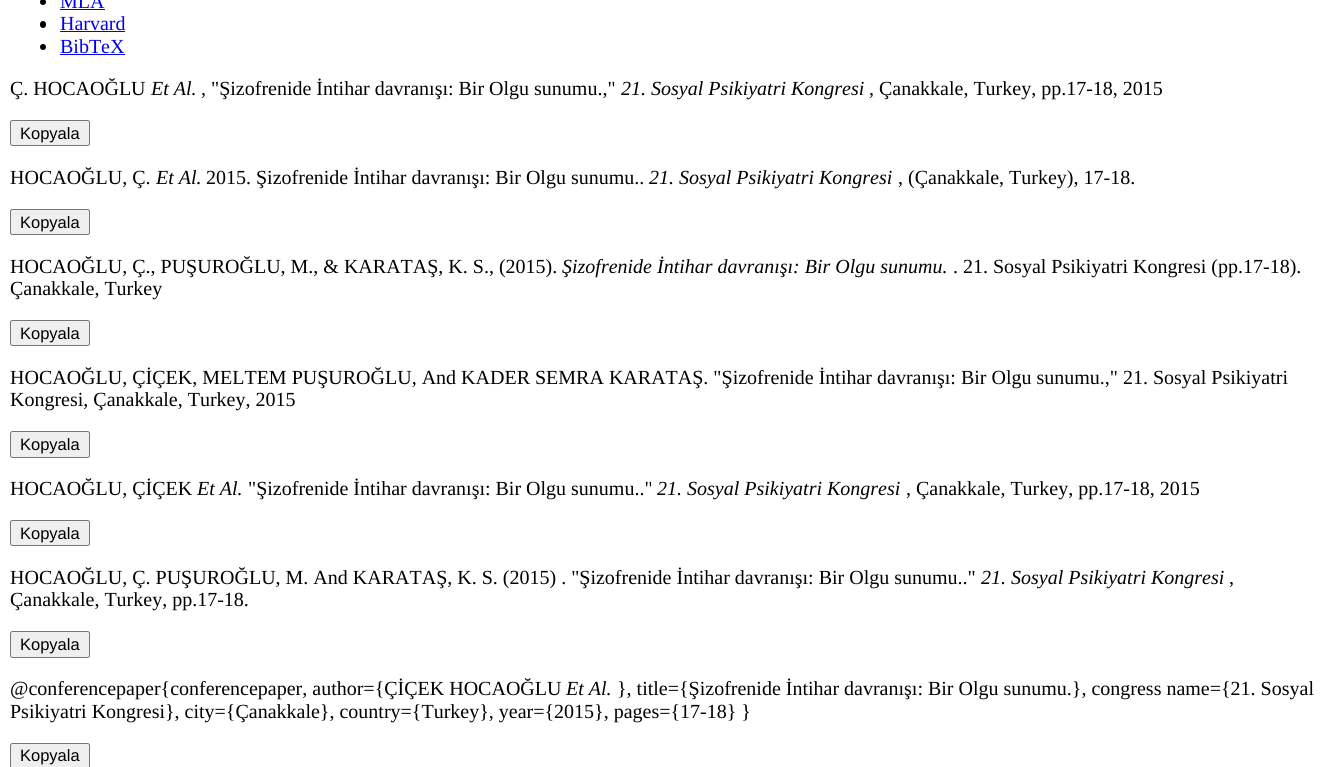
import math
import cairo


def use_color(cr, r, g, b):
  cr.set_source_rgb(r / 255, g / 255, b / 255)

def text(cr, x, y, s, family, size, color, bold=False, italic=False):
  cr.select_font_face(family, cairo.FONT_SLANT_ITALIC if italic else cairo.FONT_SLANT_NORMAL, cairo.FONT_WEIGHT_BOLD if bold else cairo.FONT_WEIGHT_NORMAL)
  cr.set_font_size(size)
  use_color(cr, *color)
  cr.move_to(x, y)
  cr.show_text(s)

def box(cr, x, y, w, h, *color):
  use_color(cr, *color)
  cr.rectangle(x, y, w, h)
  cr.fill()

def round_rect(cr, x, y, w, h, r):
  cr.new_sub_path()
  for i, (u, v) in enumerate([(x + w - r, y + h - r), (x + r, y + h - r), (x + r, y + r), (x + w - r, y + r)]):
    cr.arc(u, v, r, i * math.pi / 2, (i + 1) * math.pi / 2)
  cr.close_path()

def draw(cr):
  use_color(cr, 255, 255, 255)
  cr.paint()
  use_color(cr, 0, 0, 0)
  cr.arc(43, 2, 3, 0, 2 * math.pi)
  cr.fill()
  box(cr, 60, 9, 45, 1, 0, 0, 238)
  use_color(cr, 0, 0, 0)
  round_rect(cr, 40, 21, 6, 7, 3)
  cr.fill()
  box(cr, 60, 31, 65, 1, 0, 0, 238)
  use_color(cr, 0, 0, 0)
  cr.arc(43, 47, 3, 0, 2 * math.pi)
  cr.fill()
  box(cr, 60, 54, 65, 1, 0, 0, 238)
  use_color(cr, 239, 239, 239)
  round_rect(cr, 10.5, 120.5, 79, 25, 2)
  cr.fill_preserve()
  use_color(cr, 118, 118, 118)
  cr.set_line_width(1)
  cr.stroke()
  use_color(cr, 239, 239, 239)
  round_rect(cr, 10.5, 209.5, 79, 25, 2)
  cr.fill_preserve()
  use_color(cr, 118, 118, 118)
  cr.stroke()
  use_color(cr, 239, 239, 239)
  round_rect(cr, 10.5, 320.5, 79, 25, 2)
  cr.fill_preserve()
  use_color(cr, 118, 118, 118)
  cr.stroke()
  use_color(cr, 239, 239, 239)
  round_rect(cr, 10.5, 431.5, 79, 26, 2)
  cr.fill_preserve()
  use_color(cr, 118, 118, 118)
  cr.stroke()
  use_color(cr, 239, 239, 239)
  round_rect(cr, 10.5, 520.5, 79, 25, 2)
  cr.fill_preserve()
  use_color(cr, 118, 118, 118)
  cr.stroke()
  use_color(cr, 239, 239, 239)
  round_rect(cr, 10.5, 631.5, 79, 26, 2)
  cr.fill_preserve()
  use_color(cr, 118, 118, 118)
  cr.stroke()
  use_color(cr, 239, 239, 239)
  round_rect(cr, 10.5, 743.5, 79, 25, 2)
  cr.fill_preserve()
  use_color(cr, 118, 118, 118)
  cr.stroke()
  text(cr, 60, 8, "MLA", "Liberation Serif", 20, (0, 0, 238))
  text(cr, 60, 30, "Harvard", "Liberation Serif", 20, (0, 0, 238))
  text(cr, 60, 53, "BibTeX", "Liberation Serif", 20, (0, 0, 238))
  text(cr, 10, 95, "Ç. HOCAOĞLU", "Liberation Serif", 20, (0, 0, 0))
  text(cr, 151, 95, "Et Al.", "Liberation Serif", 20, (0, 0, 0), italic=True)
  text(cr, 201, 95, ", \"Şizofrenide İntihar davranışı: Bir Olgu sunumu.,\"", "Liberation Serif", 20, (0, 0, 0))
  text(cr, 621, 95, "21. Sosyal Psikiyatri Kongresi", "Liberation Serif", 20, (0, 0, 0), italic=True)
  text(cr, 869, 95, ", Çanakkale, Turkey, pp.17-18, 2015", "Liberation Serif", 20, (0, 0, 0))
  text(cr, 20, 139, "Kopyala", "Liberation Sans", 16.5, (0, 0, 0))
  text(cr, 10, 184, "HOCAOĞLU, Ç.", "Liberation Serif", 20, (0, 0, 0))
  text(cr, 156, 184, "Et Al.", "Liberation Serif", 20, (0, 0, 0), italic=True)
  text(cr, 206, 184, "2015. Şizofrenide İntihar davranışı: Bir Olgu sunumu..", "Liberation Serif", 20, (0, 0, 0))
  text(cr, 649, 184, "21. Sosyal Psikiyatri Kongresi", "Liberation Serif", 20, (0, 0, 0), italic=True)
  text(cr, 898, 184, ", (Çanakkale, Turkey), 17-18.", "Liberation Serif", 20, (0, 0, 0))
  text(cr, 20, 228, "Kopyala", "Liberation Sans", 16.5, (0, 0, 0))
  text(cr, 10, 273, "HOCAOĞLU, Ç., PUŞUROĞLU, M., & KARATAŞ, K. S., (2015).", "Liberation Serif", 20, (0, 0, 0))
  text(cr, 562, 273, "Şizofrenide İntihar davranışı: Bir Olgu sunumu.", "Liberation Serif", 20, (0, 0, 0), italic=True)
  text(cr, 953, 273, ". 21. Sosyal Psikiyatri Kongresi (pp.17-18).", "Liberation Serif", 20, (0, 0, 0))
  text(cr, 10, 295, "Çanakkale, Turkey", "Liberation Serif", 20, (0, 0, 0))
  text(cr, 20, 339, "Kopyala", "Liberation Sans", 16.5, (0, 0, 0))
  text(cr, 10, 384, "HOCAOĞLU, ÇİÇEK, MELTEM PUŞUROĞLU, And KADER SEMRA KARATAŞ. \"Şizofrenide İntihar davranışı: Bir Olgu sunumu.,\" 21. Sosyal Psikiyatri", "Liberation Serif", 20, (0, 0, 0))
  text(cr, 10, 406, "Kongresi, Çanakkale, Turkey, 2015", "Liberation Serif", 20, (0, 0, 0))
  text(cr, 20, 450, "Kopyala", "Liberation Sans", 16.5, (0, 0, 0))
  text(cr, 10, 495, "HOCAOĞLU, ÇİÇEK", "Liberation Serif", 20, (0, 0, 0))
  text(cr, 197, 495, "Et Al.", "Liberation Serif", 20, (0, 0, 0), italic=True)
  text(cr, 248, 495, "\"Şizofrenide İntihar davranışı: Bir Olgu sunumu..\"", "Liberation Serif", 20, (0, 0, 0))
  text(cr, 657, 495, "21. Sosyal Psikiyatri Kongresi", "Liberation Serif", 20, (0, 0, 0), italic=True)
  text(cr, 906, 495, ", Çanakkale, Turkey, pp.17-18, 2015", "Liberation Serif", 20, (0, 0, 0))
  text(cr, 20, 539, "Kopyala", "Liberation Sans", 16.5, (0, 0, 0))
  text(cr, 10, 584, "HOCAOĞLU, Ç. PUŞUROĞLU, M. And KARATAŞ, K. S. (2015) . \"Şizofrenide İntihar davranışı: Bir Olgu sunumu..\"", "Liberation Serif", 20, (0, 0, 0))
  text(cr, 981, 584, "21. Sosyal Psikiyatri Kongresi", "Liberation Serif", 20, (0, 0, 0), italic=True)
  text(cr, 1229, 584, ",", "Liberation Serif", 20, (0, 0, 0))
  text(cr, 10, 606, "Çanakkale, Turkey, pp.17-18.", "Liberation Serif", 20, (0, 0, 0))
  text(cr, 20, 650, "Kopyala", "Liberation Sans", 16.5, (0, 0, 0))
  text(cr, 10, 695, "@conferencepaper{conferencepaper, author={ÇİÇEK HOCAOĞLU", "Liberation Serif", 20, (0, 0, 0))
  text(cr, 566, 695, "Et Al.", "Liberation Serif", 20, (0, 0, 0), italic=True)
  text(cr, 617, 695, "}, title={Şizofrenide İntihar davranışı: Bir Olgu sunumu.}, congress name={21. Sosyal", "Liberation Serif", 20, (0, 0, 0))
  text(cr, 10, 718, "Psikiyatri Kongresi}, city={Çanakkale}, country={Turkey}, year={2015}, pages={17-18} }", "Liberation Serif", 20, (0, 0, 0))
  text(cr, 20, 761, "Kopyala", "Liberation Sans", 16.5, (0, 0, 0))


surface = cairo.ImageSurface(cairo.FORMAT_RGB24, 1327, 767)
cr = cairo.Context(surface)
options = cairo.FontOptions()
options.set_hint_metrics(cairo.HINT_METRICS_OFF)
options.set_hint_style(cairo.HINT_STYLE_NONE)
cr.set_font_options(options)
cr.set_miter_limit(4)
draw(cr)
surface.write_to_png("out.png")
